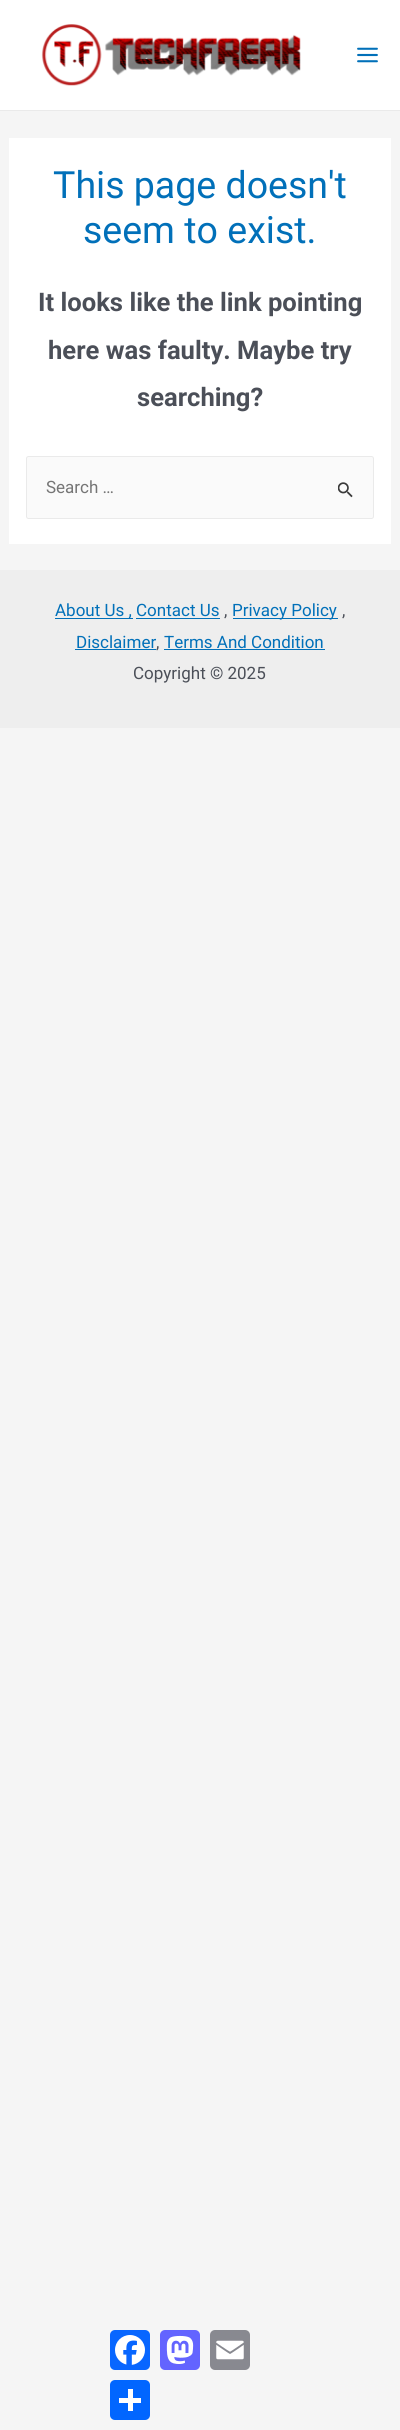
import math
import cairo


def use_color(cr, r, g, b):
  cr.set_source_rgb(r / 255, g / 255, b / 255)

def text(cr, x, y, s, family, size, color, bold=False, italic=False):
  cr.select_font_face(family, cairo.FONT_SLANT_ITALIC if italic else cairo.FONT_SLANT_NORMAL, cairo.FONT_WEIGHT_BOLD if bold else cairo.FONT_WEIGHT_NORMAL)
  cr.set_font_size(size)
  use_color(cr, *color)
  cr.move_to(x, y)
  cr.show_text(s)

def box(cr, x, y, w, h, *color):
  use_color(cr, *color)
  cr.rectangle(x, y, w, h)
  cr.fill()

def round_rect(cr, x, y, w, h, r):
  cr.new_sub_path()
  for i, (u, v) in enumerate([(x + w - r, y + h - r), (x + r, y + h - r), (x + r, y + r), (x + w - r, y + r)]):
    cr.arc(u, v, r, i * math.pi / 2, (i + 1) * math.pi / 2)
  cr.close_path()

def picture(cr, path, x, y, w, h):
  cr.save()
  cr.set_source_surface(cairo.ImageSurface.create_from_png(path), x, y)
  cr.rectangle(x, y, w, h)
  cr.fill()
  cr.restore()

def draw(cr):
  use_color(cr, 245, 245, 245)
  cr.paint()
  box(cr, 0, 0, 400, 110, 255, 255, 255)
  box(cr, 0, 110, 400, 1, 234, 234, 234)
  picture(cr, "img_01.png", 41, 24, 260, 62)
  picture(cr, "img_02.png", 357, 47, 21, 16)
  box(cr, 9, 138, 382, 406, 255, 255, 255)
  use_color(cr, 250, 250, 250)
  round_rect(cr, 26.5, 456.5, 347, 62, 2)
  cr.fill_preserve()
  use_color(cr, 234, 234, 234)
  cr.set_line_width(1)
  cr.stroke()
  picture(cr, "img_03.png", 338, 482, 15, 16)
  box(cr, 0, 570, 400, 158, 238, 238, 238)
  box(cr, 55, 618, 78, 1, 1, 112, 185)
  box(cr, 233, 618, 105, 1, 1, 112, 185)
  box(cr, 136, 618, 84, 1, 1, 112, 185)
  box(cr, 75, 649, 81, 1, 1, 112, 185)
  box(cr, 164, 649, 161, 1, 1, 112, 185)
  use_color(cr, 8, 102, 255)
  round_rect(cr, 110, 2330, 40, 40, 5)
  cr.fill()
  picture(cr, "img_04.png", 115, 2335, 30, 30)
  use_color(cr, 99, 100, 255)
  round_rect(cr, 160, 2330, 40, 40, 5)
  cr.fill()
  picture(cr, "img_05.png", 166, 2335, 28, 29)
  use_color(cr, 136, 137, 144)
  round_rect(cr, 210, 2330, 40, 40, 5)
  cr.fill()
  picture(cr, "img_06.png", 216, 2340, 28, 20)
  use_color(cr, 1, 102, 255)
  round_rect(cr, 110, 2380, 40, 40, 5)
  cr.fill()
  box(cr, 128, 2389, 5, 22, 255, 255, 255)
  box(cr, 119, 2398, 22, 5, 255, 255, 255)
  text(cr, 53, 198, "This page doesn't", "Roboto", 37.5, (1, 112, 185))
  text(cr, 83, 243, "seem to exist.", "Roboto", 37.5, (1, 112, 185))
  text(cr, 38, 311, "It looks like the link pointing", "Roboto", 25.6, (75, 79, 88), bold=True)
  text(cr, 48, 359, "here was faulty. Maybe try", "Roboto", 25.6, (75, 79, 88), bold=True)
  text(cr, 137, 406, "searching?", "Roboto", 25.6, (75, 79, 88), bold=True)
  text(cr, 46, 493, "Search …", "Roboto", 17, (117, 117, 117))
  text(cr, 55, 616, "About Us , Contact Us", "Roboto", 17, (1, 112, 185))
  text(cr, 224, 616, ",", "Roboto", 17, (75, 79, 88))
  text(cr, 232, 616, "Privacy Policy", "Roboto", 17, (1, 112, 185))
  text(cr, 342, 616, ",", "Roboto", 17, (75, 79, 88))
  text(cr, 76, 648, "Disclaimer", "Roboto", 17, (1, 112, 185))
  text(cr, 156, 648, ",", "Roboto", 17, (75, 79, 88))
  text(cr, 164, 648, "Terms And Condition", "Roboto", 17, (1, 112, 185))
  text(cr, 133, 679, "Copyright © 2025", "Roboto", 17, (75, 79, 88))


surface = cairo.ImageSurface(cairo.FORMAT_RGB24, 400, 2430)
cr = cairo.Context(surface)
options = cairo.FontOptions()
options.set_hint_metrics(cairo.HINT_METRICS_OFF)
options.set_hint_style(cairo.HINT_STYLE_NONE)
cr.set_font_options(options)
cr.set_miter_limit(4)
draw(cr)
surface.write_to_png("out.png")
